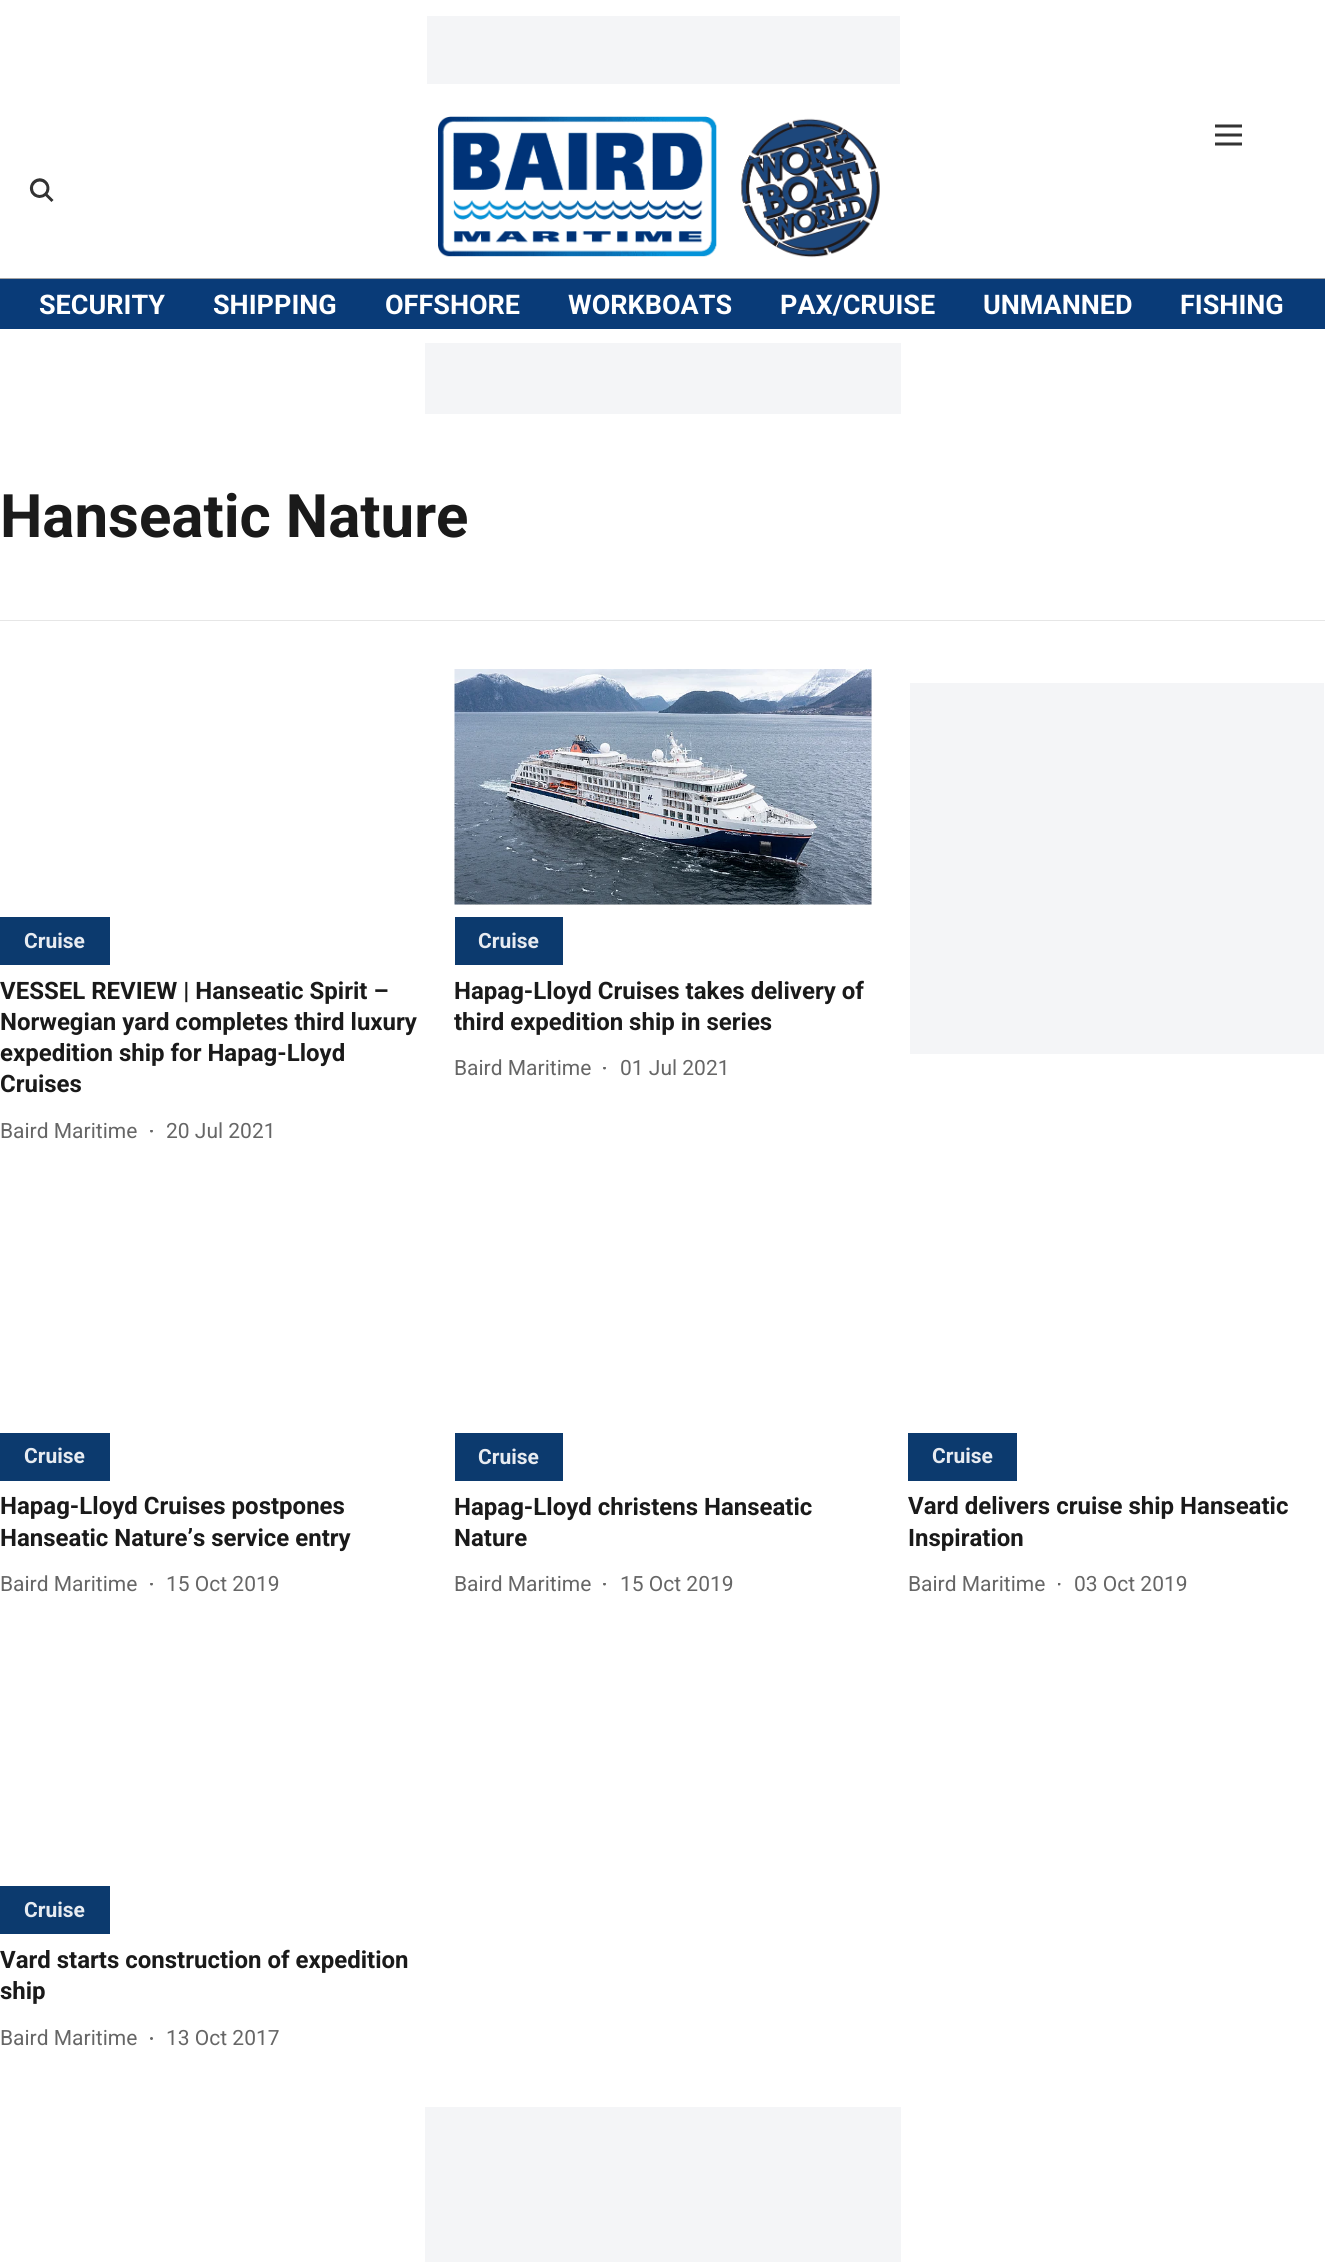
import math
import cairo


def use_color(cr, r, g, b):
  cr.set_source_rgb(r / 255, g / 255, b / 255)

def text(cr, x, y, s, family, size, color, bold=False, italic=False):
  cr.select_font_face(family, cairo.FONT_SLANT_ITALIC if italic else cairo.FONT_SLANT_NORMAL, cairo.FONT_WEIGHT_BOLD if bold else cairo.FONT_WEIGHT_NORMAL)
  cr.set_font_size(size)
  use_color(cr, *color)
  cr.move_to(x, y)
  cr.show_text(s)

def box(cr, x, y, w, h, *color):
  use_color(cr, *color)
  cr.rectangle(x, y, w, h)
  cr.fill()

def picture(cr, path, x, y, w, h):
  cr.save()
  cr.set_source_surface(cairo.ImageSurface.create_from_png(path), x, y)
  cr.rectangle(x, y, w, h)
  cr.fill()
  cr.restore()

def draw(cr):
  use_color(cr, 255, 255, 255)
  cr.paint()
  box(cr, 427, 16, 473, 68, 244, 245, 247)
  box(cr, 0, 278, 1325, 1, 164, 164, 164)
  picture(cr, "img_01.png", 438, 116, 442, 142)
  picture(cr, "img_02.png", 1215, 124, 27, 22)
  picture(cr, "img_03.png", 29, 178, 25, 24)
  box(cr, 0, 279, 1325, 50, 9, 59, 120)
  box(cr, 425, 343, 476, 71, 244, 245, 247)
  box(cr, 0, 620, 1325, 1, 230, 230, 230)
  box(cr, 0, 917, 110, 48, 12, 58, 110)
  cr.save()
  cr.rectangle(150, 1130, 5, 5)
  cr.clip()
  use_color(cr, 102, 102, 102)
  cr.arc(151.5, 1131, 1.5, 0, 2 * math.pi)
  cr.fill()
  cr.restore()
  box(cr, 455, 669, 417, 236, 240, 240, 240)
  picture(cr, "img_04.png", 454, 669, 418, 236)
  box(cr, 455, 917, 108, 48, 12, 58, 110)
  cr.save()
  cr.rectangle(603, 1067, 5, 5)
  cr.clip()
  use_color(cr, 102, 102, 102)
  cr.arc(604.5, 1068, 1.5, 0, 2 * math.pi)
  cr.fill()
  cr.restore()
  box(cr, 910, 683, 414, 371, 244, 245, 247)
  box(cr, 0, 1433, 110, 48, 12, 58, 110)
  cr.save()
  cr.rectangle(150, 1583, 5, 5)
  cr.clip()
  use_color(cr, 102, 102, 102)
  cr.arc(151.5, 1584, 1.5, 0, 2 * math.pi)
  cr.fill()
  cr.restore()
  box(cr, 455, 1433, 108, 48, 12, 58, 110)
  cr.save()
  cr.rectangle(603, 1583, 5, 5)
  cr.clip()
  use_color(cr, 102, 102, 102)
  cr.arc(604.5, 1584, 1.5, 0, 2 * math.pi)
  cr.fill()
  cr.restore()
  box(cr, 908, 1433, 109, 48, 12, 58, 110)
  cr.save()
  cr.rectangle(1058, 1583, 5, 5)
  cr.clip()
  use_color(cr, 102, 102, 102)
  cr.arc(1059, 1584, 1.5, 0, 2 * math.pi)
  cr.fill()
  cr.restore()
  box(cr, 0, 1886, 110, 48, 12, 58, 110)
  use_color(cr, 102, 102, 102)
  cr.arc(151.5, 2038.5, 1.5, 0, 2 * math.pi)
  cr.fill()
  box(cr, 425, 2107, 476, 155, 244, 245, 247)
  text(cr, 39, 314, "SECURITY", "Roboto", 27, (255, 255, 255), bold=True)
  text(cr, 213, 314, "SHIPPING", "Roboto", 27, (255, 255, 255), bold=True)
  text(cr, 385, 314, "OFFSHORE", "Roboto", 27, (255, 255, 255), bold=True)
  text(cr, 568, 314, "WORKBOATS", "Roboto", 27, (255, 255, 255), bold=True)
  text(cr, 780, 314, "PAX/CRUISE", "Roboto", 27, (255, 255, 255), bold=True)
  text(cr, 983, 314, "UNMANNED", "Roboto", 27, (255, 255, 255), bold=True)
  text(cr, 1180, 314, "FISHING", "Roboto", 27, (255, 255, 255), bold=True)
  text(cr, 0, 537, "Hanseatic Nature", "Roboto", 60, (26, 26, 26), bold=True)
  text(cr, 24, 948, "Cruise", "Roboto", 21, (231, 235, 241), bold=True)
  text(cr, 0, 999, "VESSEL REVIEW | Hanseatic Spirit –", "Roboto", 24, (26, 26, 26), bold=True)
  text(cr, 0, 1030, "Norwegian yard completes third luxury", "Roboto", 24, (26, 26, 26), bold=True)
  text(cr, 0, 1061, "expedition ship for Hapag-Lloyd", "Roboto", 24, (26, 26, 26), bold=True)
  text(cr, 0, 1092, "Cruises", "Roboto", 24, (26, 26, 26), bold=True)
  text(cr, 0, 1138, "Baird Maritime", "Roboto", 21, (102, 102, 102))
  text(cr, 166, 1138, "20 Jul 2021", "Roboto", 21, (102, 102, 102))
  text(cr, 478, 948, "Cruise", "Roboto", 21, (231, 235, 241), bold=True)
  text(cr, 454, 999, "Hapag-Lloyd Cruises takes delivery of", "Roboto", 24, (26, 26, 26), bold=True)
  text(cr, 454, 1030, "third expedition ship in series", "Roboto", 24, (26, 26, 26), bold=True)
  text(cr, 454, 1075, "Baird Maritime", "Roboto", 21, (102, 102, 102))
  text(cr, 620, 1075, "01 Jul 2021", "Roboto", 21, (102, 102, 102))
  text(cr, 24, 1463, "Cruise", "Roboto", 21, (231, 235, 241), bold=True)
  text(cr, 0, 1514, "Hapag-Lloyd Cruises postpones", "Roboto", 24, (26, 26, 26), bold=True)
  text(cr, 0, 1546, "Hanseatic Nature’s service entry", "Roboto", 24, (26, 26, 26), bold=True)
  text(cr, 0, 1591, "Baird Maritime", "Roboto", 21, (102, 102, 102))
  text(cr, 166, 1591, "15 Oct 2019", "Roboto", 21, (102, 102, 102))
  text(cr, 478, 1464, "Cruise", "Roboto", 21, (231, 235, 241), bold=True)
  text(cr, 454, 1515, "Hapag-Lloyd christens Hanseatic", "Roboto", 24, (26, 26, 26), bold=True)
  text(cr, 454, 1546, "Nature", "Roboto", 24, (26, 26, 26), bold=True)
  text(cr, 454, 1591, "Baird Maritime", "Roboto", 21, (102, 102, 102))
  text(cr, 620, 1591, "15 Oct 2019", "Roboto", 21, (102, 102, 102))
  text(cr, 932, 1463, "Cruise", "Roboto", 21, (231, 235, 241), bold=True)
  text(cr, 908, 1514, "Vard delivers cruise ship Hanseatic", "Roboto", 24, (26, 26, 26), bold=True)
  text(cr, 908, 1546, "Inspiration", "Roboto", 24, (26, 26, 26), bold=True)
  text(cr, 908, 1591, "Baird Maritime", "Roboto", 21, (102, 102, 102))
  text(cr, 1074, 1591, "03 Oct 2019", "Roboto", 21, (102, 102, 102))
  text(cr, 24, 1917, "Cruise", "Roboto", 21, (231, 235, 241), bold=True)
  text(cr, 0, 1968, "Vard starts construction of expedition", "Roboto", 24, (26, 26, 26), bold=True)
  text(cr, 0, 1999, "ship", "Roboto", 24, (26, 26, 26), bold=True)
  text(cr, 0, 2045, "Baird Maritime", "Roboto", 21, (102, 102, 102))
  text(cr, 166, 2045, "13 Oct 2017", "Roboto", 21, (102, 102, 102))


surface = cairo.ImageSurface(cairo.FORMAT_RGB24, 1325, 2262)
cr = cairo.Context(surface)
options = cairo.FontOptions()
options.set_hint_metrics(cairo.HINT_METRICS_OFF)
options.set_hint_style(cairo.HINT_STYLE_NONE)
cr.set_font_options(options)
cr.set_miter_limit(4)
draw(cr)
surface.write_to_png("out.png")
